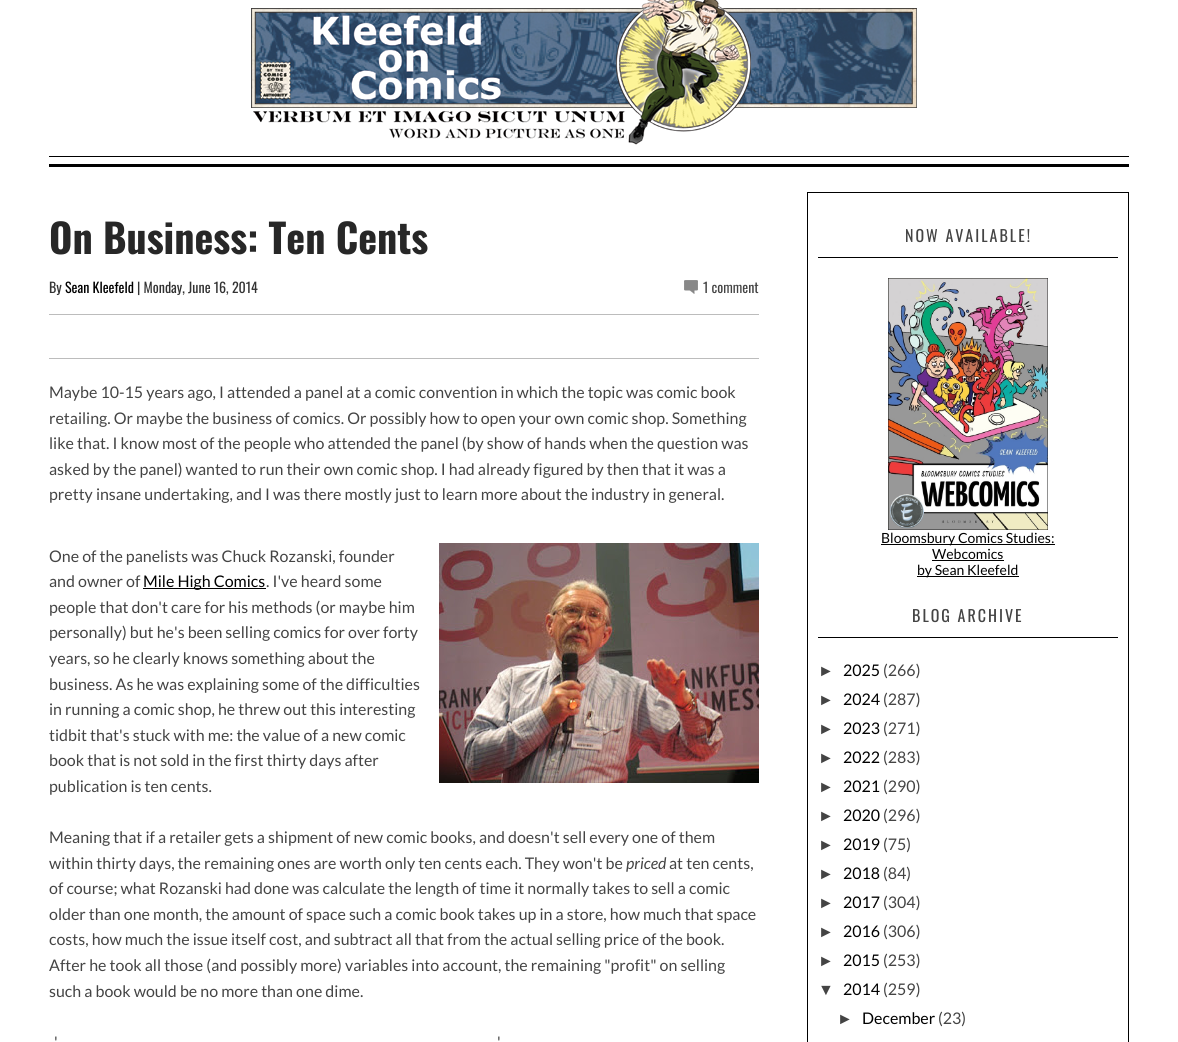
import math
import cairo


def use_color(cr, r, g, b):
  cr.set_source_rgb(r / 255, g / 255, b / 255)

def text(cr, x, y, s, family, size, color, bold=False, italic=False):
  cr.select_font_face(family, cairo.FONT_SLANT_ITALIC if italic else cairo.FONT_SLANT_NORMAL, cairo.FONT_WEIGHT_BOLD if bold else cairo.FONT_WEIGHT_NORMAL)
  cr.set_font_size(size)
  use_color(cr, *color)
  cr.move_to(x, y)
  cr.show_text(s)

def spaced_text(cr, x, y, s, letter, word):
  cr.move_to(x, y)
  for ch in s:
    cr.show_text(ch)
    cr.rel_move_to(letter + word * (ch == ' '), 0)

def box(cr, x, y, w, h, *color):
  use_color(cr, *color)
  cr.rectangle(x, y, w, h)
  cr.fill()

def picture(cr, path, x, y, w, h):
  cr.save()
  cr.set_source_surface(cairo.ImageSurface.create_from_png(path), x, y)
  cr.rectangle(x, y, w, h)
  cr.fill()
  cr.restore()

def draw(cr):
  use_color(cr, 255, 255, 255)
  cr.paint()
  picture(cr, "img_01.png", 251, 0, 666, 145)
  box(cr, 49, 156, 1080, 1, 0, 0, 0)
  box(cr, 49, 164, 1080, 3, 0, 0, 0)
  picture(cr, "img_02.png", 684, 280, 14, 14)
  box(cr, 49, 314, 710, 1, 188, 188, 188)
  box(cr, 49, 358, 710, 1, 188, 188, 188)
  picture(cr, "img_03.png", 439, 543, 320, 240)
  box(cr, 143, 588, 123, 1, 0, 0, 0)
  cr.rectangle(807.5, 192.5, 321, 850)
  cr.set_line_width(1)
  cr.stroke()
  box(cr, 818, 257, 300, 1, 0, 0, 0)
  picture(cr, "img_04.png", 888, 278, 160, 252)
  box(cr, 881, 544, 174, 1, 0, 0, 0)
  box(cr, 932, 560, 72, 1, 0, 0, 0)
  box(cr, 917, 576, 102, 1, 0, 0, 0)
  box(cr, 818, 637, 300, 1, 0, 0, 0)
  text(cr, 49, 254, "On Business: Ten Cents", "Oswald", 40, (39, 39, 39), bold=True)
  text(cr, 49, 293, "By", "Oswald", 14, (51, 51, 51))
  text(cr, 65, 293, "Sean Kleefeld", "Oswald", 14, (0, 0, 0))
  text(cr, 137, 293, "| Monday, June 16, 2014", "Oswald", 14, (51, 51, 51))
  text(cr, 703, 293, "1 comment", "Oswald", 14, (68, 68, 68))
  text(cr, 49, 398, "Maybe 10-15 years ago, I attended a panel at a comic convention in which the topic was comic book", "Lato", 16, (68, 68, 68))
  text(cr, 49, 424, "retailing. Or maybe the business of comics. Or possibly how to open your own comic shop. Something", "Lato", 16, (68, 68, 68))
  text(cr, 49, 449, "like that. I know most of the people who attended the panel (by show of hands when the question was", "Lato", 16, (68, 68, 68))
  text(cr, 49, 475, "asked by the panel) wanted to run their own comic shop. I had already figured by then that it was a", "Lato", 16, (68, 68, 68))
  text(cr, 49, 500, "pretty insane undertaking, and I was there mostly just to learn more about the industry in general.", "Lato", 16, (68, 68, 68))
  text(cr, 49, 562, "One of the panelists was Chuck Rozanski, founder", "Lato", 16, (68, 68, 68))
  text(cr, 49, 587, "and owner of", "Lato", 16, (68, 68, 68))
  text(cr, 143, 587, "Mile High Comics", "Lato", 16, (0, 0, 0))
  text(cr, 266, 587, ". I've heard some", "Lato", 16, (68, 68, 68))
  text(cr, 49, 613, "people that don't care for his methods (or maybe him", "Lato", 16, (68, 68, 68))
  text(cr, 49, 638, "personally) but he's been selling comics for over forty", "Lato", 16, (68, 68, 68))
  text(cr, 49, 664, "years, so he clearly knows something about the", "Lato", 16, (68, 68, 68))
  text(cr, 49, 690, "business. As he was explaining some of the difficulties", "Lato", 16, (68, 68, 68))
  text(cr, 49, 715, "in running a comic shop, he threw out this interesting", "Lato", 16, (68, 68, 68))
  text(cr, 49, 741, "tidbit that's stuck with me: the value of a new comic", "Lato", 16, (68, 68, 68))
  text(cr, 49, 766, "book that is not sold in the first thirty days after", "Lato", 16, (68, 68, 68))
  text(cr, 49, 792, "publication is ten cents.", "Lato", 16, (68, 68, 68))
  text(cr, 49, 843, "Meaning that if a retailer gets a shipment of new comic books, and doesn't sell every one of them", "Lato", 16, (68, 68, 68))
  text(cr, 49, 869, "within thirty days, the remaining ones are worth only ten cents each. They won't be", "Lato", 16, (68, 68, 68))
  text(cr, 626, 869, "priced", "Lato", 16, (68, 68, 68), italic=True)
  text(cr, 669, 869, "at ten cents,", "Lato", 16, (68, 68, 68))
  text(cr, 49, 894, "of course; what Rozanski had done was calculate the length of time it normally takes to sell a comic", "Lato", 16, (68, 68, 68))
  text(cr, 49, 920, "older than one month, the amount of space such a comic book takes up in a store, how much that space", "Lato", 16, (68, 68, 68))
  text(cr, 49, 945, "costs, how much the issue itself cost, and subtract all that from the actual selling price of the book.", "Lato", 16, (68, 68, 68))
  text(cr, 49, 971, "After he took all those (and possibly more) variables into account, the remaining \"profit\" on selling", "Lato", 16, (68, 68, 68))
  text(cr, 49, 997, "such a book would be no more than one dime.", "Lato", 16, (68, 68, 68))
  text(cr, 54, 1048, "'", "Lato", 16, (68, 68, 68))
  text(cr, 497, 1048, "'", "Lato", 16, (68, 68, 68))
  cr.select_font_face("Oswald")
  spaced_text(cr, 905, 242, "NOW AVAILABLE!", 2, 0)
  text(cr, 881, 543, "Bloomsbury Comics Studies:", "Lato", 14, (0, 0, 0))
  text(cr, 932, 559, "Webcomics", "Lato", 14, (0, 0, 0))
  text(cr, 917, 575, "by Sean Kleefeld", "Lato", 14, (0, 0, 0))
  cr.select_font_face("Oswald")
  cr.set_font_size(16)
  use_color(cr, 68, 68, 68)
  spaced_text(cr, 912, 622, "BLOG ARCHIVE", 2, 0)
  text(cr, 818, 676, "►", "Liberation Sans", 16, (68, 68, 68))
  text(cr, 843, 676, "2025", "Lato", 16, (0, 0, 0))
  text(cr, 883, 676, "(266)", "Lato", 16, (68, 68, 68))
  text(cr, 818, 705, "►", "Liberation Sans", 16, (68, 68, 68))
  text(cr, 843, 705, "2024", "Lato", 16, (0, 0, 0))
  text(cr, 883, 705, "(287)", "Lato", 16, (68, 68, 68))
  text(cr, 818, 734, "►", "Liberation Sans", 16, (68, 68, 68))
  text(cr, 843, 734, "2023", "Lato", 16, (0, 0, 0))
  text(cr, 883, 734, "(271)", "Lato", 16, (68, 68, 68))
  text(cr, 818, 763, "►", "Liberation Sans", 16, (68, 68, 68))
  text(cr, 843, 763, "2022", "Lato", 16, (0, 0, 0))
  text(cr, 883, 763, "(283)", "Lato", 16, (68, 68, 68))
  text(cr, 818, 792, "►", "Liberation Sans", 16, (68, 68, 68))
  text(cr, 843, 792, "2021", "Lato", 16, (0, 0, 0))
  text(cr, 883, 792, "(290)", "Lato", 16, (68, 68, 68))
  text(cr, 818, 821, "►", "Liberation Sans", 16, (68, 68, 68))
  text(cr, 843, 821, "2020", "Lato", 16, (0, 0, 0))
  text(cr, 883, 821, "(296)", "Lato", 16, (68, 68, 68))
  text(cr, 818, 850, "►", "Liberation Sans", 16, (68, 68, 68))
  text(cr, 843, 850, "2019", "Lato", 16, (0, 0, 0))
  text(cr, 883, 850, "(75)", "Lato", 16, (68, 68, 68))
  text(cr, 818, 879, "►", "Liberation Sans", 16, (68, 68, 68))
  text(cr, 843, 879, "2018", "Lato", 16, (0, 0, 0))
  text(cr, 883, 879, "(84)", "Lato", 16, (68, 68, 68))
  text(cr, 818, 908, "►", "Liberation Sans", 16, (68, 68, 68))
  text(cr, 843, 908, "2017", "Lato", 16, (0, 0, 0))
  text(cr, 883, 908, "(304)", "Lato", 16, (68, 68, 68))
  text(cr, 818, 937, "►", "Liberation Sans", 16, (68, 68, 68))
  text(cr, 843, 937, "2016", "Lato", 16, (0, 0, 0))
  text(cr, 883, 937, "(306)", "Lato", 16, (68, 68, 68))
  text(cr, 818, 966, "►", "Liberation Sans", 16, (68, 68, 68))
  text(cr, 843, 966, "2015", "Lato", 16, (0, 0, 0))
  text(cr, 883, 966, "(253)", "Lato", 16, (68, 68, 68))
  text(cr, 818, 995, "▼", "Liberation Sans", 16, (68, 68, 68))
  text(cr, 843, 995, "2014", "Lato", 16, (0, 0, 0))
  text(cr, 883, 995, "(259)", "Lato", 16, (68, 68, 68))
  text(cr, 837, 1024, "►", "Liberation Sans", 16, (68, 68, 68))
  text(cr, 862, 1024, "December", "Lato", 16, (0, 0, 0))
  text(cr, 938, 1024, "(23)", "Lato", 16, (68, 68, 68))


surface = cairo.ImageSurface(cairo.FORMAT_RGB24, 1178, 1042)
cr = cairo.Context(surface)
options = cairo.FontOptions()
options.set_hint_metrics(cairo.HINT_METRICS_OFF)
options.set_hint_style(cairo.HINT_STYLE_NONE)
cr.set_font_options(options)
cr.set_miter_limit(4)
draw(cr)
surface.write_to_png("out.png")
